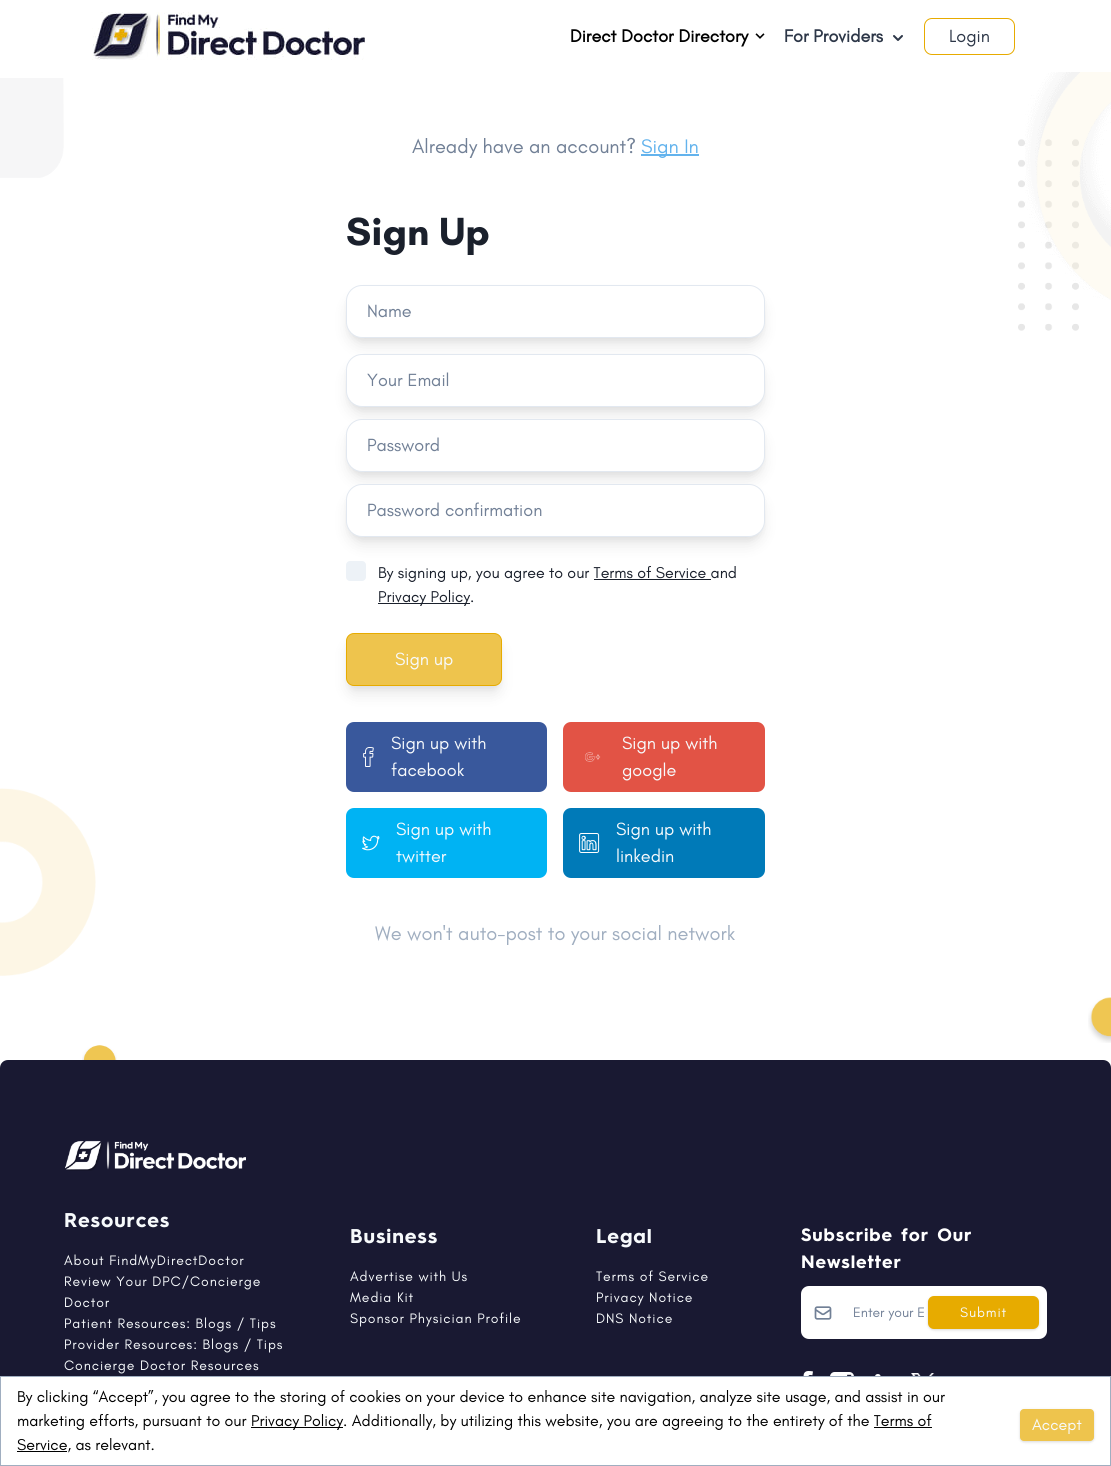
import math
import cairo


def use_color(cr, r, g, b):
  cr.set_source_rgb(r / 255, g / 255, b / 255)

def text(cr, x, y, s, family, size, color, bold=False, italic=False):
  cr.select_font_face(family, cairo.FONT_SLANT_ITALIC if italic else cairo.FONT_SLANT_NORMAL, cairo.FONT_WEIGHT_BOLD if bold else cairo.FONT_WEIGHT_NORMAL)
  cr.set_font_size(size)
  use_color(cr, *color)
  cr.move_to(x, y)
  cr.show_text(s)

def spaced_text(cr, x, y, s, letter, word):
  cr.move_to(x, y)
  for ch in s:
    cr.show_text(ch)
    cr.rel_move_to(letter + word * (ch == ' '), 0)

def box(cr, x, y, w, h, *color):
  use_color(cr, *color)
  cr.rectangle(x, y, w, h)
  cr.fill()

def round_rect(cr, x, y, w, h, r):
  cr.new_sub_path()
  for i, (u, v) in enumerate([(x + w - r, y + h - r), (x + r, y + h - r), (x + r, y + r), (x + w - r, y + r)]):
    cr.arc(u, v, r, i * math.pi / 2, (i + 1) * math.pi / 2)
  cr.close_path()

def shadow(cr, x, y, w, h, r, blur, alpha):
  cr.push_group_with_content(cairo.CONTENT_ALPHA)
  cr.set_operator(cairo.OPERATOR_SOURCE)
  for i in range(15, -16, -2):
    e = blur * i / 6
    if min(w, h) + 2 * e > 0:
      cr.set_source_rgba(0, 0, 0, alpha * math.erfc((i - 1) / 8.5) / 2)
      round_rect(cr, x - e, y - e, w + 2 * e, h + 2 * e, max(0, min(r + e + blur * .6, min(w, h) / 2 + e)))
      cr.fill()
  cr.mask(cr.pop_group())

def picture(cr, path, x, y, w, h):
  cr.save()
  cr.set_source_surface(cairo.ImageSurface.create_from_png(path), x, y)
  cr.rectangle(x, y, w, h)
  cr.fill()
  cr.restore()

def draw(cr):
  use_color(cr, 255, 255, 255)
  cr.paint()
  picture(cr, "img_01.png", 92, 12, 273, 48)
  picture(cr, "img_02.png", 755, 33, 10, 6)
  picture(cr, "img_03.png", 893, 35, 10, 6)
  round_rect(cr, 924.5, 18.5, 90, 36, 7.5)
  use_color(cr, 231, 171, 0)
  cr.set_line_width(1)
  cr.stroke()
  picture(cr, "img_04.png", 0, 78, 64, 100)
  box(cr, 641, 154, 58, 2, 99, 179, 237)
  use_color(cr, 0, 0, 0)
  shadow(cr, 348, 291, 415, 49, 14, 3, 0.05)
  shadow(cr, 349, 298, 413, 47, 13, 7.5, 0.1)
  use_color(cr, 255, 255, 255)
  round_rect(cr, 346.5, 285.5, 418, 52, 15.5)
  cr.fill_preserve()
  use_color(cr, 226, 232, 240)
  cr.stroke()
  use_color(cr, 0, 0, 0)
  shadow(cr, 348, 360, 415, 49, 14, 3, 0.05)
  shadow(cr, 349, 367, 413, 47, 13, 7.5, 0.1)
  use_color(cr, 255, 255, 255)
  round_rect(cr, 346.5, 354.5, 418, 52, 15.5)
  cr.fill_preserve()
  use_color(cr, 226, 232, 240)
  cr.stroke()
  use_color(cr, 0, 0, 0)
  shadow(cr, 348, 425, 415, 49, 14, 3, 0.05)
  shadow(cr, 349, 432, 413, 47, 13, 7.5, 0.1)
  use_color(cr, 255, 255, 255)
  round_rect(cr, 346.5, 419.5, 418, 52, 15.5)
  cr.fill_preserve()
  use_color(cr, 226, 232, 240)
  cr.stroke()
  use_color(cr, 0, 0, 0)
  shadow(cr, 348, 490, 415, 49, 14, 3, 0.05)
  shadow(cr, 349, 497, 413, 47, 13, 7.5, 0.1)
  use_color(cr, 255, 255, 255)
  round_rect(cr, 346.5, 484.5, 418, 52, 15.5)
  cr.fill_preserve()
  use_color(cr, 226, 232, 240)
  cr.stroke()
  use_color(cr, 237, 242, 247)
  round_rect(cr, 346, 561, 20, 20, 4)
  cr.fill()
  box(cr, 594, 579, 117, 1, 26, 32, 44)
  box(cr, 378, 603, 92, 1, 26, 32, 44)
  use_color(cr, 0, 0, 0)
  shadow(cr, 348, 639, 152, 49, 6, 3, 0.05)
  shadow(cr, 349, 646, 150, 47, 5, 7.5, 0.1)
  use_color(cr, 238, 196, 77)
  round_rect(cr, 346.5, 633.5, 155, 52, 7.5)
  cr.fill_preserve()
  use_color(cr, 231, 171, 0)
  cr.stroke()
  use_color(cr, 57, 88, 156)
  round_rect(cr, 346, 722, 201, 70, 8)
  cr.fill()
  picture(cr, "img_05.png", 363, 747, 11, 20)
  use_color(cr, 226, 83, 69)
  round_rect(cr, 563, 722, 202, 70, 8)
  cr.fill()
  picture(cr, "img_06.png", 585, 752, 16, 10)
  use_color(cr, 0, 179, 243)
  round_rect(cr, 346, 808, 201, 70, 8)
  cr.fill()
  picture(cr, "img_07.png", 362, 835, 18, 16)
  use_color(cr, 0, 122, 184)
  round_rect(cr, 563, 808, 202, 70, 8)
  cr.fill()
  picture(cr, "img_08.png", 579, 833, 21, 20)
  picture(cr, "img_10.png", 1018, 139, 61, 192)
  picture(cr, "img_09.png", 1025, 72, 86, 228)
  picture(cr, "img_11.png", 0, 788, 96, 188)
  picture(cr, "img_12.png", 82, 1045, 35, 15)
  picture(cr, "img_13.png", 1088, 997, 23, 46)
  use_color(cr, 25, 25, 50)
  cr.new_path()
  cr.move_to(8, 1060)
  cr.line_to(1103, 1060)
  cr.curve_to(1107.5, 1060, 1111, 1063.5, 1111, 1068)
  cr.line_to(1111, 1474)
  cr.line_to(0, 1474)
  cr.line_to(0, 1068)
  cr.curve_to(0, 1063.5, 3.5, 1060, 8, 1060)
  cr.close_path()
  cr.fill()
  use_color(cr, 255, 255, 255)
  cr.rectangle(0.5, 1376.5, 1110, 89)
  cr.fill_preserve()
  use_color(cr, 160, 174, 192)
  cr.stroke()
  box(cr, 251, 1427, 92, 1, 0, 0, 0)
  box(cr, 874, 1427, 58, 1, 0, 0, 0)
  box(cr, 17, 1451, 50, 1, 0, 0, 0)
  use_color(cr, 0, 0, 0)
  shadow(cr, 1020, 1410, 74, 32, 4, 1, 0.06)
  shadow(cr, 1020, 1410, 74, 32, 4, 1.5, 0.1)
  use_color(cr, 238, 196, 77)
  round_rect(cr, 1020, 1409, 74, 32, 4)
  cr.fill()
  picture(cr, "img_14.png", 65, 1140, 181, 31)
  use_color(cr, 255, 255, 255)
  round_rect(cr, 801, 1286, 246, 53, 8)
  cr.fill()
  picture(cr, "img_15.png", 814, 1306, 18, 14)
  use_color(cr, 0, 0, 0)
  shadow(cr, 928, 1297, 111, 33, 6, 1, 0.06)
  shadow(cr, 928, 1297, 111, 33, 6, 1.5, 0.1)
  use_color(cr, 231, 171, 0)
  round_rect(cr, 928, 1296, 111, 33, 6)
  cr.fill()
  picture(cr, "img_16.png", 803, 1371, 10, 5)
  picture(cr, "img_17.png", 830, 1372, 24, 4)
  picture(cr, "img_18.png", 875, 1374, 6, 2)
  picture(cr, "img_19.png", 911, 1373, 24, 3)
  text(cr, 570, 42, "Direct Doctor Directory", "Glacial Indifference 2", 18, (0, 0, 0), bold=True)
  text(cr, 784, 42, "For Providers", "Glacial Indifference 2", 18, (45, 55, 72), bold=True)
  text(cr, 949, 42, "Login", "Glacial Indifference", 18, (45, 55, 72))
  text(cr, 412, 153, "Already have an account?", "Glacial Indifference", 20, (113, 128, 150))
  text(cr, 641, 153, "Sign In", "Glacial Indifference", 20, (99, 179, 237))
  text(cr, 346, 245, "Sign Up", "Glacial Indifference", 40, (26, 32, 44), bold=True)
  text(cr, 367, 317, "Name", "Glacial Indifference", 18, (113, 128, 150))
  text(cr, 367, 386, "Your Email", "Glacial Indifference", 18, (113, 128, 150))
  text(cr, 367, 451, "Password", "Glacial Indifference", 18, (113, 128, 150))
  text(cr, 367, 516, "Password confirmation", "Glacial Indifference", 18, (113, 128, 150))
  text(cr, 378, 578, "By signing up, you agree to our Terms of Service and", "Glacial Indifference", 16, (26, 32, 44))
  text(cr, 378, 602, "Privacy Policy.", "Glacial Indifference", 16, (26, 32, 44))
  text(cr, 395, 665, "Sign up", "Glacial Indifference", 18, (247, 250, 252))
  text(cr, 391, 749, "Sign up with", "Glacial Indifference", 18, (247, 250, 252))
  text(cr, 391, 776, "facebook", "Glacial Indifference", 18, (247, 250, 252))
  text(cr, 622, 749, "Sign up with", "Glacial Indifference", 18, (247, 250, 252))
  text(cr, 622, 776, "google", "Glacial Indifference", 18, (247, 250, 252))
  text(cr, 396, 835, "Sign up with", "Glacial Indifference", 18, (247, 250, 252))
  text(cr, 396, 862, "twitter", "Glacial Indifference", 18, (247, 250, 252))
  text(cr, 616, 835, "Sign up with", "Glacial Indifference", 18, (247, 250, 252))
  text(cr, 616, 862, "linkedin", "Glacial Indifference", 18, (247, 250, 252))
  text(cr, 375, 940, "We won't auto-post to your social network", "Glacial Indifference", 20, (160, 174, 192))
  text(cr, 17, 1402, "By clicking “Accept”, you agree to the storing of cookies on your device to enhance site navigation, analyze site usage, and assist in our", "Glacial Indifference", 16, (0, 0, 0))
  text(cr, 17, 1426, "marketing efforts, pursuant to our", "Glacial Indifference", 16, (0, 0, 0))
  text(cr, 251, 1426, "Privacy Policy. Additionally, by utilizing this website, you are agreeing to the entirety of the Terms of", "Glacial Indifference", 16, (0, 0, 0))
  text(cr, 17, 1450, "Service, as relevant.", "Glacial Indifference", 16, (0, 0, 0))
  text(cr, 1032, 1430, "Accept", "Glacial Indifference", 16, (247, 250, 252))
  cr.select_font_face("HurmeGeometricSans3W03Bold", cairo.FONT_SLANT_NORMAL, cairo.FONT_WEIGHT_BOLD)
  cr.set_font_size(20)
  spaced_text(cr, 64, 1227, "Resources", 0.9, 0)
  cr.select_font_face("Glacial Indifference")
  cr.set_font_size(14)
  spaced_text(cr, 64, 1265, "About FindMyDirectDoctor", 0.9, 0)
  spaced_text(cr, 64, 1286, "Review Your DPC/Concierge", 0.9, 0)
  spaced_text(cr, 64, 1307, "Doctor", 0.9, 0)
  spaced_text(cr, 64, 1328, "Patient Resources: Blogs / Tips", 0.9, 0)
  spaced_text(cr, 64, 1349, "Provider Resources: Blogs / Tips", 0.9, 0)
  spaced_text(cr, 64, 1370, "Concierge Doctor Resources", 0.9, 0)
  cr.select_font_face("HurmeGeometricSans3W03Bold", cairo.FONT_SLANT_NORMAL, cairo.FONT_WEIGHT_BOLD)
  cr.set_font_size(20)
  spaced_text(cr, 350, 1243, "Business", 0.9, 0)
  cr.select_font_face("Glacial Indifference")
  cr.set_font_size(14)
  spaced_text(cr, 350, 1281, "Advertise with Us", 0.9, 0)
  spaced_text(cr, 350, 1302, "Media Kit", 0.9, 0)
  spaced_text(cr, 350, 1323, "Sponsor Physician Profile", 0.9, 0)
  cr.select_font_face("HurmeGeometricSans3W03Bold", cairo.FONT_SLANT_NORMAL, cairo.FONT_WEIGHT_BOLD)
  cr.set_font_size(20)
  spaced_text(cr, 596, 1243, "Legal", 0.9, 0)
  cr.select_font_face("Glacial Indifference")
  cr.set_font_size(14)
  spaced_text(cr, 596, 1281, "Terms of Service", 0.9, 0)
  spaced_text(cr, 596, 1302, "Privacy Notice", 0.9, 0)
  spaced_text(cr, 596, 1323, "DNS Notice", 0.9, 0)
  cr.select_font_face("HurmeGeometricSans3W03Bold", cairo.FONT_SLANT_NORMAL, cairo.FONT_WEIGHT_BOLD)
  cr.set_font_size(18)
  use_color(cr, 255, 255, 255)
  spaced_text(cr, 801, 1241, "Subscribe for Our", 0.9, 0)
  spaced_text(cr, 801, 1268, "Newsletter", 0.9, 0)
  text(cr, 853, 1317, "Enter your E", "Glacial Indifference", 14, (113, 128, 150))
  use_color(cr, 247, 250, 252)
  spaced_text(cr, 960, 1317, "Submit", 0.9, 0)


surface = cairo.ImageSurface(cairo.FORMAT_RGB24, 1111, 1466)
cr = cairo.Context(surface)
options = cairo.FontOptions()
options.set_hint_metrics(cairo.HINT_METRICS_OFF)
options.set_hint_style(cairo.HINT_STYLE_NONE)
cr.set_font_options(options)
cr.set_miter_limit(4)
draw(cr)
surface.write_to_png("out.png")
